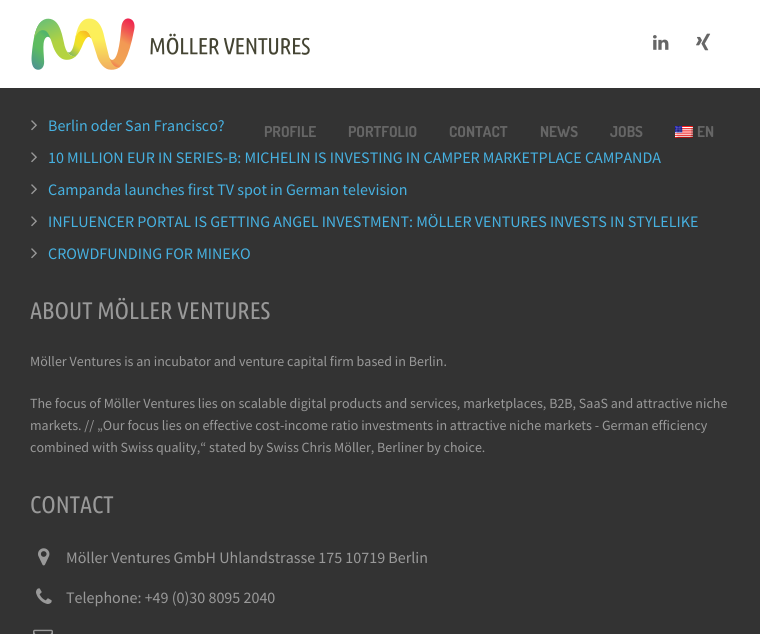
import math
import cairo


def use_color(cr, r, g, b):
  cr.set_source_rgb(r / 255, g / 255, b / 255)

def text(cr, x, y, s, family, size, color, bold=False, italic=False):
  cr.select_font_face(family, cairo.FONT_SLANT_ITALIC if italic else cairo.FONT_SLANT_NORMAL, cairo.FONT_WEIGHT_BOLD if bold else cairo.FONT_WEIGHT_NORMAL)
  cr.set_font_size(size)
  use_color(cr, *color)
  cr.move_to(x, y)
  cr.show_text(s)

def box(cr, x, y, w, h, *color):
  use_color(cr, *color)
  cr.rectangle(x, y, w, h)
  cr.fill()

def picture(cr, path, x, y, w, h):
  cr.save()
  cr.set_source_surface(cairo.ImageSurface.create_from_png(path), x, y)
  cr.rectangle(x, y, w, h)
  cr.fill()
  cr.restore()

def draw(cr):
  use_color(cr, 51, 51, 51)
  cr.paint()
  picture(cr, "img_01.png", 31, 120, 6, 11)
  picture(cr, "img_01.png", 31, 152, 6, 11)
  picture(cr, "img_01.png", 31, 184, 6, 11)
  picture(cr, "img_01.png", 31, 216, 6, 11)
  picture(cr, "img_01.png", 31, 248, 6, 11)
  picture(cr, "img_02.png", 38, 548, 12, 18)
  picture(cr, "img_03.png", 36, 588, 16, 16)
  picture(cr, "img_04.png", 33, 629, 20, 5)
  box(cr, 0, 0, 760, 88, 255, 255, 255)
  picture(cr, "img_05.png", 31, 18, 279, 52)
  picture(cr, "img_06.png", 653, 35, 16, 15)
  picture(cr, "img_07.png", 696, 33, 15, 18)
  picture(cr, "img_08.png", 675, 126, 18, 12)
  text(cr, 48, 131, "Berlin oder San Francisco?", "Source Sans Pro", 16, (70, 177, 225))
  text(cr, 48, 163, "10 MILLION EUR IN SERIES-B: MICHELIN IS INVESTING IN CAMPER MARKETPLACE CAMPANDA", "Source Sans Pro", 16, (70, 177, 225))
  text(cr, 48, 195, "Campanda launches first TV spot in German television", "Source Sans Pro", 16, (70, 177, 225))
  text(cr, 48, 227, "INFLUENCER PORTAL IS GETTING ANGEL INVESTMENT: MÖLLER VENTURES INVESTS IN STYLELIKE", "Source Sans Pro", 16, (70, 177, 225))
  text(cr, 48, 259, "CROWDFUNDING FOR MINEKO", "Source Sans Pro", 16, (70, 177, 225))
  text(cr, 30, 319, "ABOUT MÖLLER VENTURES", "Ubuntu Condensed", 24, (153, 153, 153))
  text(cr, 30, 366, "Möller Ventures is an incubator and venture capital firm based in Berlin.", "Source Sans Pro", 14, (153, 153, 153))
  text(cr, 30, 408, "The focus of Möller Ventures lies on scalable digital products and services, marketplaces, B2B, SaaS and attractive niche", "Source Sans Pro", 14, (153, 153, 153))
  text(cr, 30, 430, "markets. // „Our focus lies on effective cost-income ratio investments in attractive niche markets - German efficiency", "Source Sans Pro", 14, (153, 153, 153))
  text(cr, 30, 452, "combined with Swiss quality,“ stated by Swiss Chris Möller, Berliner by choice.", "Source Sans Pro", 14, (153, 153, 153))
  text(cr, 30, 513, "CONTACT", "Ubuntu Condensed", 24, (153, 153, 153))
  text(cr, 66, 563, "Möller Ventures GmbH Uhlandstrasse 175 10719 Berlin", "Source Sans Pro", 16, (153, 153, 153))
  text(cr, 66, 603, "Telephone: +49 (0)30 8095 2040", "Source Sans Pro", 16, (153, 153, 153))
  text(cr, 264, 137, "PROFILE", "Dosis", 15, (102, 102, 102), bold=True)
  text(cr, 348, 137, "PORTFOLIO", "Dosis", 15, (102, 102, 102), bold=True)
  text(cr, 449, 137, "CONTACT", "Dosis", 15, (102, 102, 102), bold=True)
  text(cr, 540, 137, "NEWS", "Dosis", 15, (102, 102, 102), bold=True)
  text(cr, 610, 137, "JOBS", "Dosis", 15, (102, 102, 102), bold=True)
  text(cr, 697, 137, "EN", "Dosis", 15, (102, 102, 102), bold=True)


surface = cairo.ImageSurface(cairo.FORMAT_RGB24, 760, 634)
cr = cairo.Context(surface)
options = cairo.FontOptions()
options.set_hint_metrics(cairo.HINT_METRICS_OFF)
options.set_hint_style(cairo.HINT_STYLE_NONE)
cr.set_font_options(options)
cr.set_miter_limit(4)
draw(cr)
surface.write_to_png("out.png")
